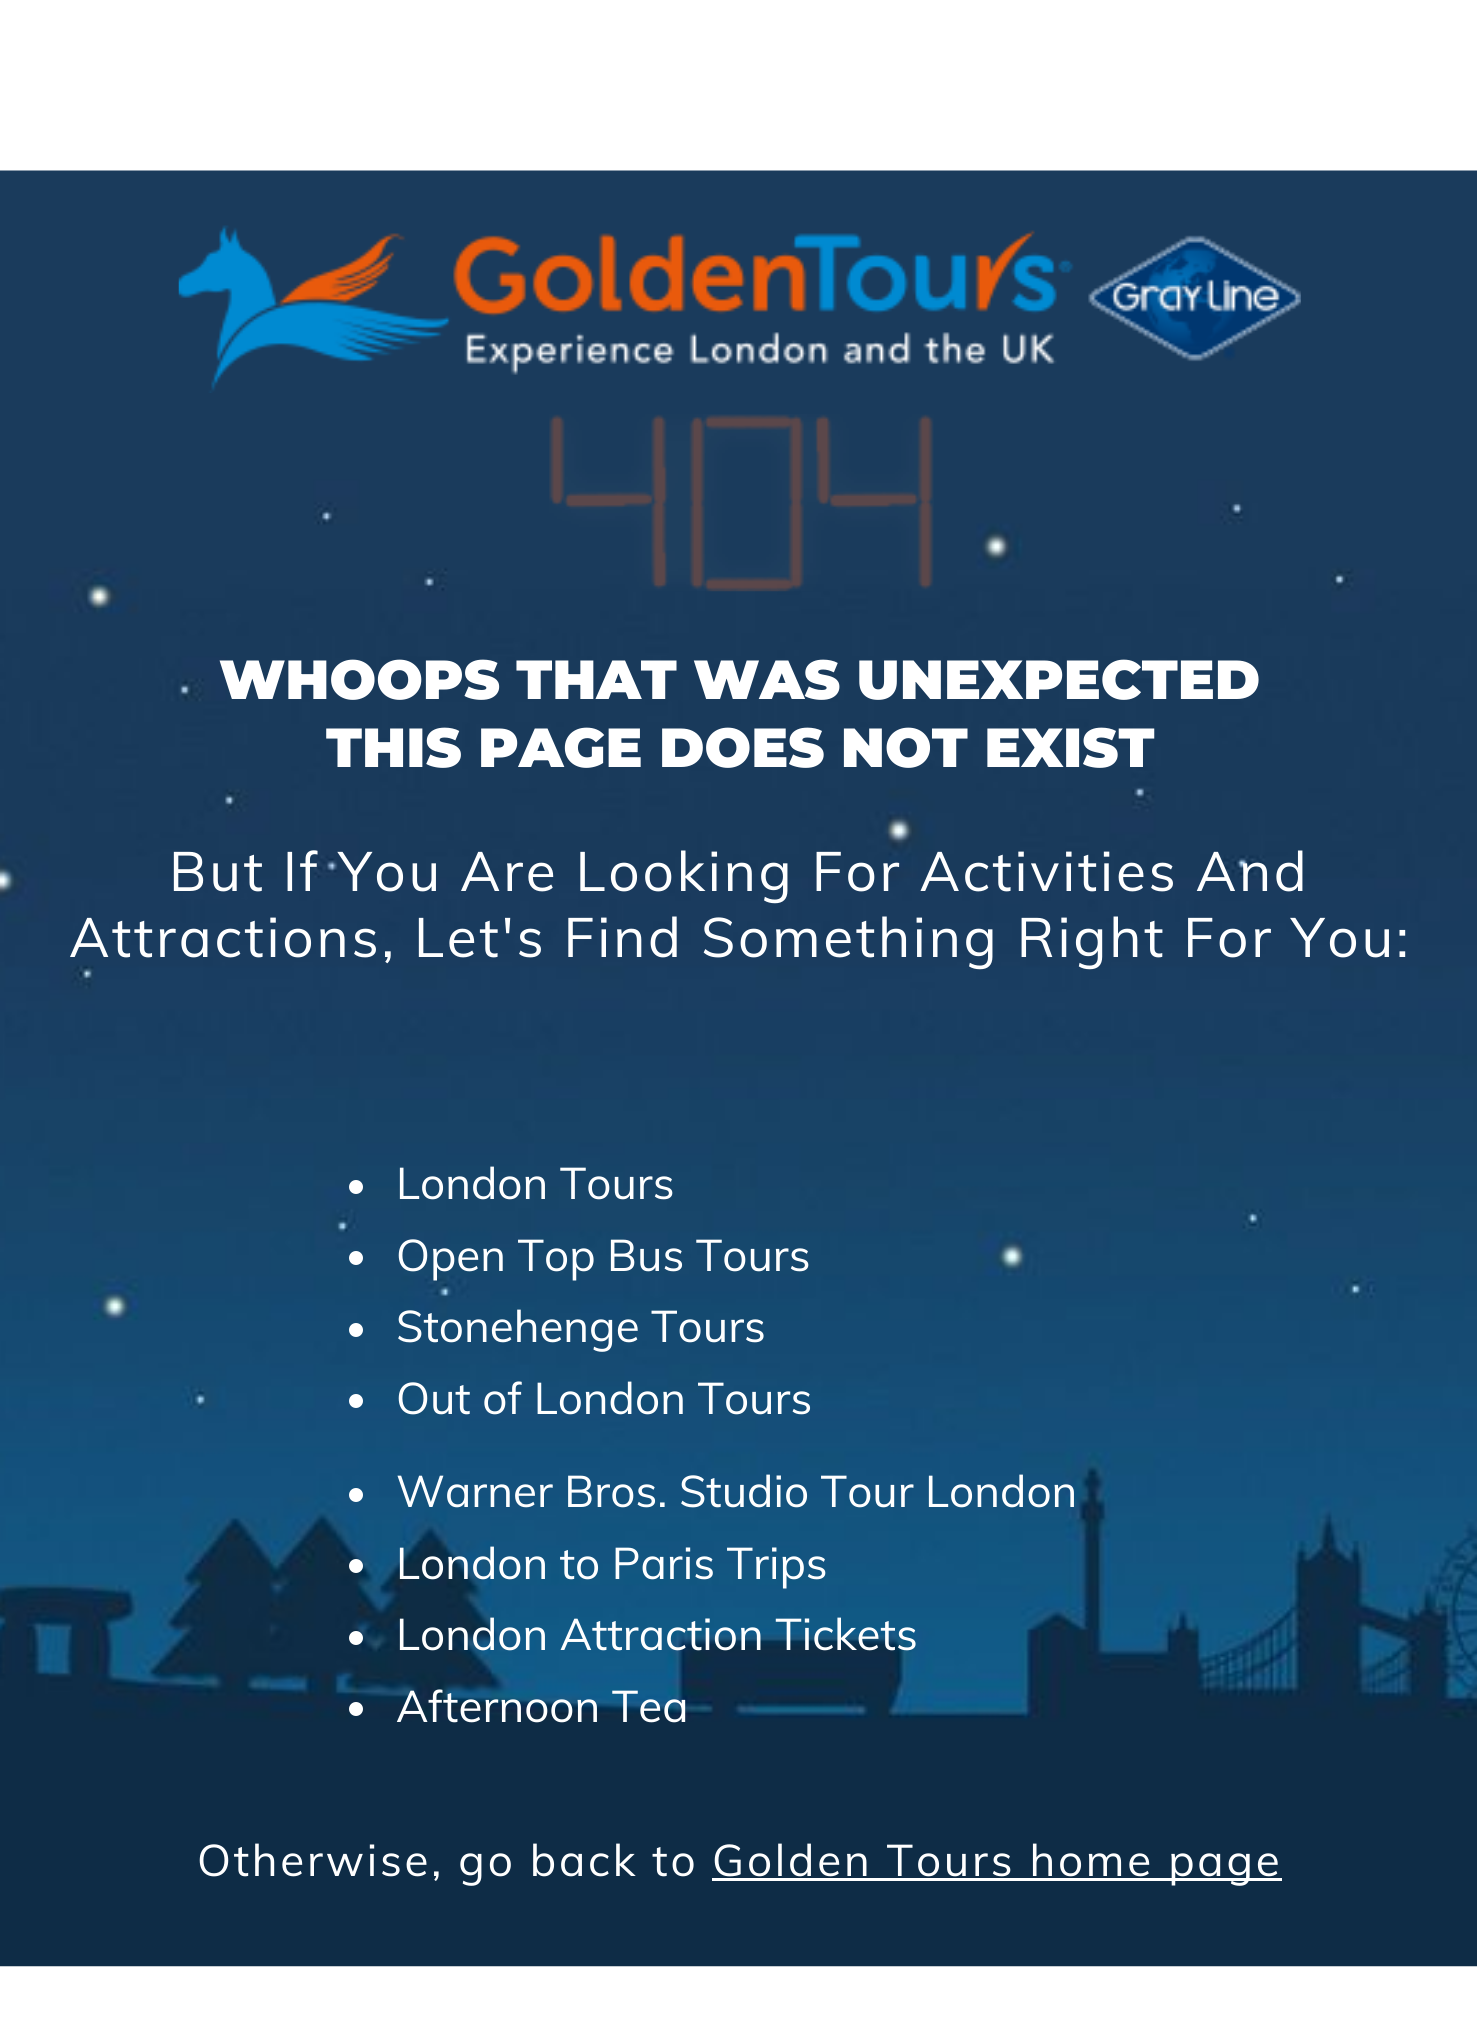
import math
import cairo


def use_color(cr, r, g, b):
  cr.set_source_rgb(r / 255, g / 255, b / 255)

def text(cr, x, y, s, family, size, color, bold=False, italic=False):
  cr.select_font_face(family, cairo.FONT_SLANT_ITALIC if italic else cairo.FONT_SLANT_NORMAL, cairo.FONT_WEIGHT_BOLD if bold else cairo.FONT_WEIGHT_NORMAL)
  cr.set_font_size(size)
  use_color(cr, *color)
  cr.move_to(x, y)
  cr.show_text(s)

def spaced_text(cr, x, y, s, letter, word):
  cr.move_to(x, y)
  for ch in s:
    cr.show_text(ch)
    cr.rel_move_to(letter + word * (ch == ' '), 0)

def box(cr, x, y, w, h, *color):
  use_color(cr, *color)
  cr.rectangle(x, y, w, h)
  cr.fill()

def picture(cr, path, x, y, w, h):
  cr.save()
  cr.set_source_surface(cairo.ImageSurface.create_from_png(path), x, y)
  cr.rectangle(x, y, w, h)
  cr.fill()
  cr.restore()

def draw(cr):
  use_color(cr, 255, 255, 255)
  cr.paint()
  picture(cr, "img_01.png", 0, 170, 1477, 1797)
  picture(cr, "img_02.png", 178, 225, 1123, 168)
  picture(cr, "img_03.png", 549, 414, 385, 178)
  use_color(cr, 255, 255, 255)
  cr.arc(356, 1187, 7, 0, 2 * math.pi)
  cr.fill()
  cr.arc(356, 1258, 7, 0, 2 * math.pi)
  cr.fill()
  cr.arc(356, 1330, 7, 0, 2 * math.pi)
  cr.fill()
  cr.arc(356, 1401, 7, 0, 2 * math.pi)
  cr.fill()
  cr.arc(356, 1495, 7, 0, 2 * math.pi)
  cr.fill()
  cr.arc(356, 1566, 7, 0, 2 * math.pi)
  cr.fill()
  cr.arc(356, 1638, 7, 0, 2 * math.pi)
  cr.fill()
  cr.arc(356, 1709, 7, 0, 2 * math.pi)
  cr.fill()
  box(cr, 712, 1878, 570, 3, 255, 255, 255)
  text(cr, 219, 699, "WHOOPS THAT WAS UNEXPECTED", "Montserrat Black", 55, (255, 255, 255))
  text(cr, 326, 767, "THIS PAGE DOES NOT EXIST", "Montserrat Black", 55, (255, 255, 255))
  cr.select_font_face("Muli")
  spaced_text(cr, 169, 891, "But If You Are Looking For Activities And", 2.75, 0)
  spaced_text(cr, 69, 957, "Attractions, Let's Find Something Right For You:", 2.75, 0)
  text(cr, 396, 1199, "London Tours", "Muli", 44, (255, 255, 255))
  text(cr, 396, 1271, "Open Top Bus Tours", "Muli", 44, (255, 255, 255))
  text(cr, 396, 1342, "Stonehenge Tours", "Muli", 44, (255, 255, 255))
  text(cr, 396, 1414, "Out of London Tours", "Muli", 44, (255, 255, 255))
  text(cr, 396, 1507, "Warner Bros. Studio Tour London", "Muli", 44, (255, 255, 255))
  text(cr, 396, 1579, "London to Paris Trips", "Muli", 44, (255, 255, 255))
  text(cr, 396, 1650, "London Attraction Tickets", "Muli", 44, (255, 255, 255))
  text(cr, 396, 1722, "Afternoon Tea", "Muli", 44, (255, 255, 255))
  spaced_text(cr, 197, 1876, "Otherwise, go back to", 2.75, 0)
  spaced_text(cr, 712, 1876, "Golden Tours home page", 2.75, 0)


surface = cairo.ImageSurface(cairo.FORMAT_RGB24, 1477, 2029)
cr = cairo.Context(surface)
options = cairo.FontOptions()
options.set_hint_metrics(cairo.HINT_METRICS_OFF)
options.set_hint_style(cairo.HINT_STYLE_NONE)
cr.set_font_options(options)
cr.set_miter_limit(4)
draw(cr)
surface.write_to_png("out.png")
